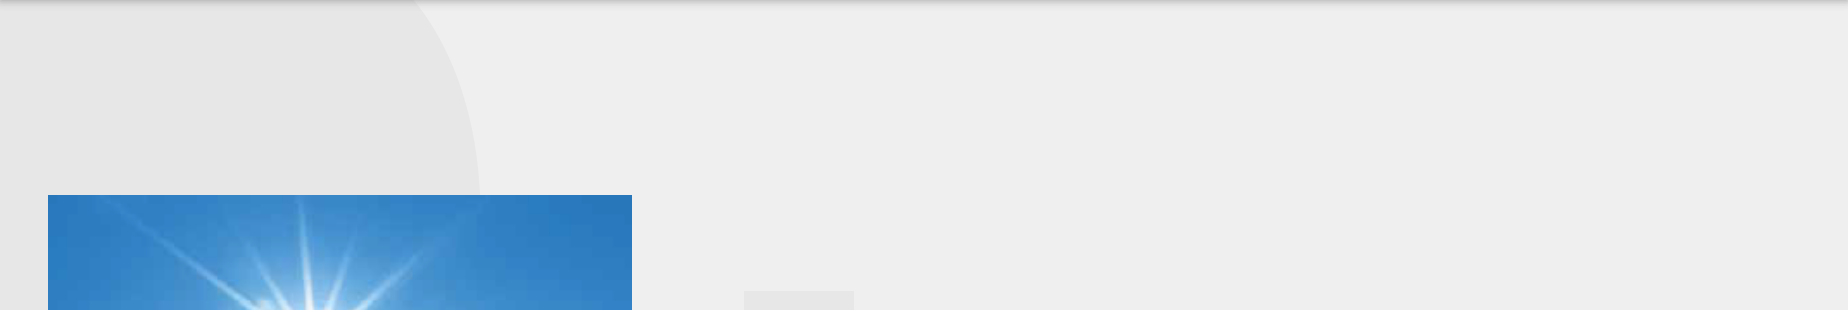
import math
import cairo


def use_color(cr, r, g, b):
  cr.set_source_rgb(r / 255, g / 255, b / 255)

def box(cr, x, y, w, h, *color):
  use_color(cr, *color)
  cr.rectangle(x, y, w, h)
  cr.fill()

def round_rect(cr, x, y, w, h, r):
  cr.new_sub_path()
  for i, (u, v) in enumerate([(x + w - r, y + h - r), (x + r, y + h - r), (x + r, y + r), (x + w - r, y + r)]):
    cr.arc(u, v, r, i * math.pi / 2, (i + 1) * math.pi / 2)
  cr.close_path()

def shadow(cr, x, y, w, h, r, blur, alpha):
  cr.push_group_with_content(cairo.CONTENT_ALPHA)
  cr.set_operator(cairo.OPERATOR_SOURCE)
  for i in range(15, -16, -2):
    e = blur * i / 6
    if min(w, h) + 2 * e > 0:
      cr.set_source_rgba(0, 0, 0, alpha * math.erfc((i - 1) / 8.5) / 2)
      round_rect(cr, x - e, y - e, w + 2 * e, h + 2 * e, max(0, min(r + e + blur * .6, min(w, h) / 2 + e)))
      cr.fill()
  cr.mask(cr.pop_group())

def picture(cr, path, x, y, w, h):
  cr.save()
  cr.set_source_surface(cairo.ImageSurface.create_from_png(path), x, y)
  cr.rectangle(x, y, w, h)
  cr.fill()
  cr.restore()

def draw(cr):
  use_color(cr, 239, 239, 239)
  cr.paint()
  use_color(cr, 231, 231, 231)
  cr.set_fill_rule(cairo.FILL_RULE_EVEN_ODD)
  cr.new_path()
  cr.move_to(402, -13)
  cr.curve_to(504, 92, 504, 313, 416, 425)
  cr.curve_to(384, 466, 339, 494, 289, 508)
  cr.curve_to(244, 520, 194, 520, 150, 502)
  cr.curve_to(91, 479, 45, 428, 0, 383)
  cr.line_to(0, -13)
  cr.close_path()
  cr.fill()
  picture(cr, "img_01.png", 48, 195, 584, 115)
  box(cr, 744, 291, 110, 19, 231, 231, 231)
  use_color(cr, 0, 0, 0)
  shadow(cr, 0, -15, 1848, 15, 0, 5, 0.35)


surface = cairo.ImageSurface(cairo.FORMAT_RGB24, 1848, 310)
cr = cairo.Context(surface)
options = cairo.FontOptions()
options.set_hint_metrics(cairo.HINT_METRICS_OFF)
options.set_hint_style(cairo.HINT_STYLE_NONE)
cr.set_font_options(options)
cr.set_miter_limit(4)
draw(cr)
surface.write_to_png("out.png")
